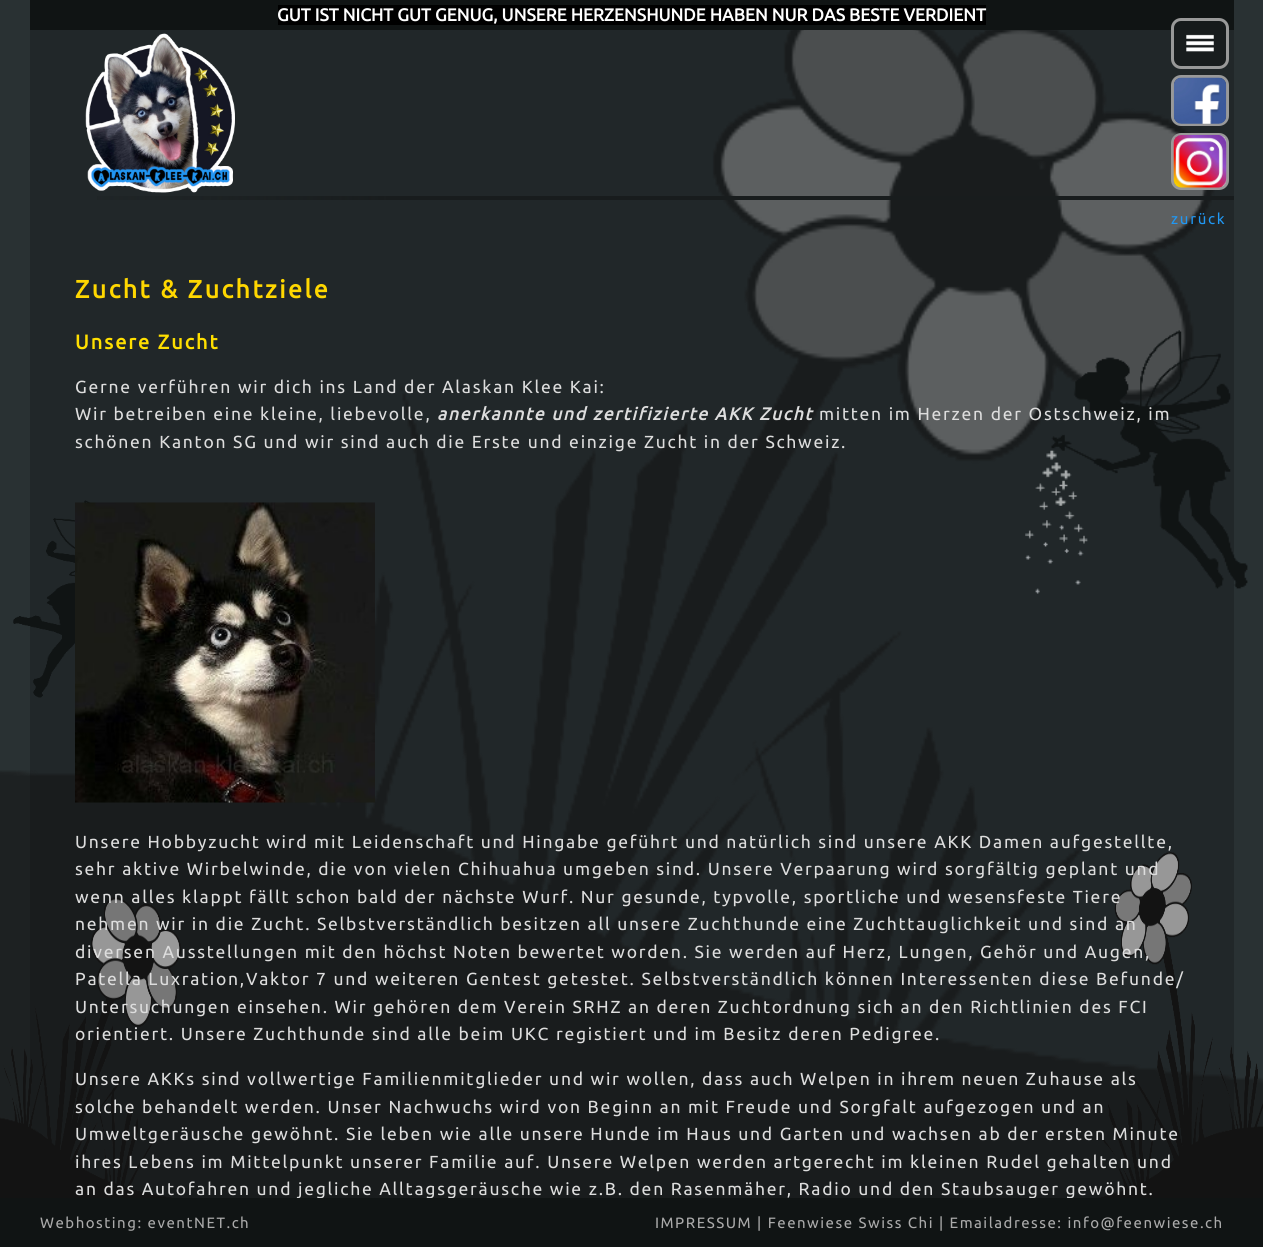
import math
import cairo


def use_color(cr, r, g, b):
  cr.set_source_rgb(r / 255, g / 255, b / 255)

def text(cr, x, y, s, family, size, color, bold=False, italic=False):
  cr.select_font_face(family, cairo.FONT_SLANT_ITALIC if italic else cairo.FONT_SLANT_NORMAL, cairo.FONT_WEIGHT_BOLD if bold else cairo.FONT_WEIGHT_NORMAL)
  cr.set_font_size(size)
  use_color(cr, *color)
  cr.move_to(x, y)
  cr.show_text(s)

def spaced_text(cr, x, y, s, letter, word):
  cr.move_to(x, y)
  for ch in s:
    cr.show_text(ch)
    cr.rel_move_to(letter + word * (ch == ' '), 0)

def box(cr, x, y, w, h, *color):
  use_color(cr, *color)
  cr.rectangle(x, y, w, h)
  cr.fill()

def round_rect(cr, x, y, w, h, r):
  cr.new_sub_path()
  for i, (u, v) in enumerate([(x + w - r, y + h - r), (x + r, y + h - r), (x + r, y + r), (x + w - r, y + r)]):
    cr.arc(u, v, r, i * math.pi / 2, (i + 1) * math.pi / 2)
  cr.close_path()

def picture(cr, path, x, y, w, h):
  cr.save()
  cr.set_source_surface(cairo.ImageSurface.create_from_png(path), x, y)
  cr.rectangle(x, y, w, h)
  cr.fill()
  cr.restore()

def draw(cr):
  use_color(cr, 41, 49, 51)
  cr.paint()
  box(cr, 30, 0, 1204, 30, 16, 20, 20)
  box(cr, 30, 30, 1204, 1168, 33, 39, 41)
  picture(cr, "img_03.png", 0, 30, 1263, 1168)
  picture(cr, "img_01.png", 85, 33, 150, 160)
  box(cr, 278, 5, 708, 20, 0, 0, 0)
  gradient = cairo.LinearGradient(30, 198, 1234, 198)
  gradient.add_color_stop_rgba(0, 0.094, 0.11, 0.114, 0)
  gradient.add_color_stop_rgba(0.3, 0.094, 0.11, 0.114, 1)
  gradient.add_color_stop_rgba(1, 0.094, 0.11, 0.114, 1)
  cr.set_source(gradient)
  cr.rectangle(97, 196, 1137, 4)
  cr.fill()
  cr.set_source_rgba(0.094, 0.11, 0.114, 0.85)
  round_rect(cr, 1172.5, 19.5, 55, 48, 8.5)
  cr.fill_preserve()
  use_color(cr, 153, 153, 153)
  cr.set_line_width(3)
  cr.stroke()
  picture(cr, "img_02.png", 1186, 34, 28, 18)
  round_rect(cr, 1172.5, 76.5, 55, 48, 8.5)
  cr.stroke()
  picture(cr, "img_04.png", 1173, 77, 54, 47)
  round_rect(cr, 1172.5, 134.5, 55, 54, 8.5)
  cr.stroke()
  picture(cr, "img_05.png", 1173, 135, 54, 53)
  picture(cr, "img_07.png", 13, 500, 78, 198)
  picture(cr, "img_06.png", 75, 502, 300, 301)
  picture(cr, "img_08.png", 1025, 330, 223, 264)
  picture(cr, "img_09.png", 0, 897, 181, 301)
  picture(cr, "img_10.png", 1096, 852, 167, 346)
  text(cr, 277, 21, "GUT IST NICHT GUT GENUG, UNSERE HERZENSHUNDE HABEN NUR DAS BESTE VERDIENT", "Ubuntu", 17.5, (255, 255, 255), bold=True)
  cr.select_font_face("Ubuntu")
  cr.set_font_size(15)
  use_color(cr, 32, 152, 244)
  spaced_text(cr, 1171, 224, "zurück", 1.75, 0)
  cr.select_font_face("Ubuntu", cairo.FONT_SLANT_NORMAL, cairo.FONT_WEIGHT_BOLD)
  cr.set_font_size(25)
  use_color(cr, 255, 215, 0)
  spaced_text(cr, 75, 298, "Zucht & Zuchtziele", 2.5, 0)
  cr.set_font_size(20)
  use_color(cr, 255, 223, 0)
  spaced_text(cr, 75, 349, "Unsere Zucht", 2, 0)
  cr.select_font_face("Ubuntu")
  cr.set_font_size(17.5)
  use_color(cr, 221, 221, 221)
  spaced_text(cr, 75, 393, "Gerne verführen wir dich ins Land der Alaskan Klee Kai:", 1.75, 0)
  spaced_text(cr, 75, 420, "Wir betreiben eine kleine, liebevolle,", 1.75, 0)
  cr.select_font_face("Ubuntu", cairo.FONT_SLANT_ITALIC, cairo.FONT_WEIGHT_BOLD)
  spaced_text(cr, 437, 420, "anerkannte und zertifizierte AKK Zucht", 1.75, 0)
  cr.select_font_face("Ubuntu")
  spaced_text(cr, 819, 420, "mitten im Herzen der Ostschweiz, im", 1.75, 0)
  spaced_text(cr, 75, 448, "schönen Kanton SG und wir sind auch die Erste und einzige Zucht in der Schweiz.", 1.75, 0)
  spaced_text(cr, 75, 848, "Unsere Hobbyzucht wird mit Leidenschaft und Hingabe geführt und natürlich sind unsere AKK Damen aufgestellte,", 1.75, 0)
  spaced_text(cr, 75, 875, "sehr aktive Wirbelwinde, die von vielen Chihuahua umgeben sind. Unsere Verpaarung wird sorgfältig geplant und", 1.75, 0)
  spaced_text(cr, 75, 903, "wenn alles klappt fällt schon bald der nächste Wurf. Nur gesunde, typvolle, sportliche und wesensfeste Tiere", 1.75, 0)
  spaced_text(cr, 75, 930, "nehmen wir in die Zucht. Selbstverständlich besitzen all unsere Zuchthunde eine Zuchttauglichkeit und sind an", 1.75, 0)
  spaced_text(cr, 75, 958, "diversen Ausstellungen mit den höchst Noten bewertet worden. Sie werden auf Herz, Lungen, Gehör und Augen,", 1.75, 0)
  spaced_text(cr, 75, 985, "Patella Luxration,Vaktor 7 und weiteren Gentest getestet. Selbstverständlich können Interessenten diese Befunde/", 1.75, 0)
  spaced_text(cr, 75, 1013, "Untersuchungen einsehen. Wir gehören dem Verein SRHZ an deren Zuchtordnung sich an den Richtlinien des FCI", 1.75, 0)
  spaced_text(cr, 75, 1040, "orientiert. Unsere Zuchthunde sind alle beim UKC registiert und im Besitz deren Pedigree.", 1.75, 0)
  spaced_text(cr, 75, 1085, "Unsere AKKs sind vollwertige Familienmitglieder und wir wollen, dass auch Welpen in ihrem neuen Zuhause als", 1.75, 0)
  spaced_text(cr, 75, 1113, "solche behandelt werden. Unser Nachwuchs wird von Beginn an mit Freude und Sorgfalt aufgezogen und an", 1.75, 0)
  spaced_text(cr, 75, 1140, "Umweltgeräusche gewöhnt. Sie leben wie alle unsere Hunde im Haus und Garten und wachsen ab der ersten Minute", 1.75, 0)
  spaced_text(cr, 75, 1168, "ihres Lebens im Mittelpunkt unserer Familie auf. Unsere Welpen werden artgerecht im kleinen Rudel gehalten und", 1.75, 0)
  spaced_text(cr, 75, 1195, "an das Autofahren und jegliche Alltagsgeräusche wie z.B. den Rasenmäher, Radio und den Staubsauger gewöhnt.", 1.75, 0)
  box(cr, 0, 1198, 1263, 49, 16, 20, 20)
  cr.set_font_size(15)
  use_color(cr, 170, 170, 170)
  spaced_text(cr, 40, 1228, "Webhosting: eventNET.ch", 1.5, 0)
  spaced_text(cr, 655, 1228, "IMPRESSUM | Feenwiese Swiss Chi | Emailadresse: info@feenwiese.ch", 1.5, 0)


surface = cairo.ImageSurface(cairo.FORMAT_RGB24, 1263, 1247)
cr = cairo.Context(surface)
options = cairo.FontOptions()
options.set_hint_metrics(cairo.HINT_METRICS_OFF)
options.set_hint_style(cairo.HINT_STYLE_NONE)
cr.set_font_options(options)
cr.set_miter_limit(4)
draw(cr)
surface.write_to_png("out.png")
